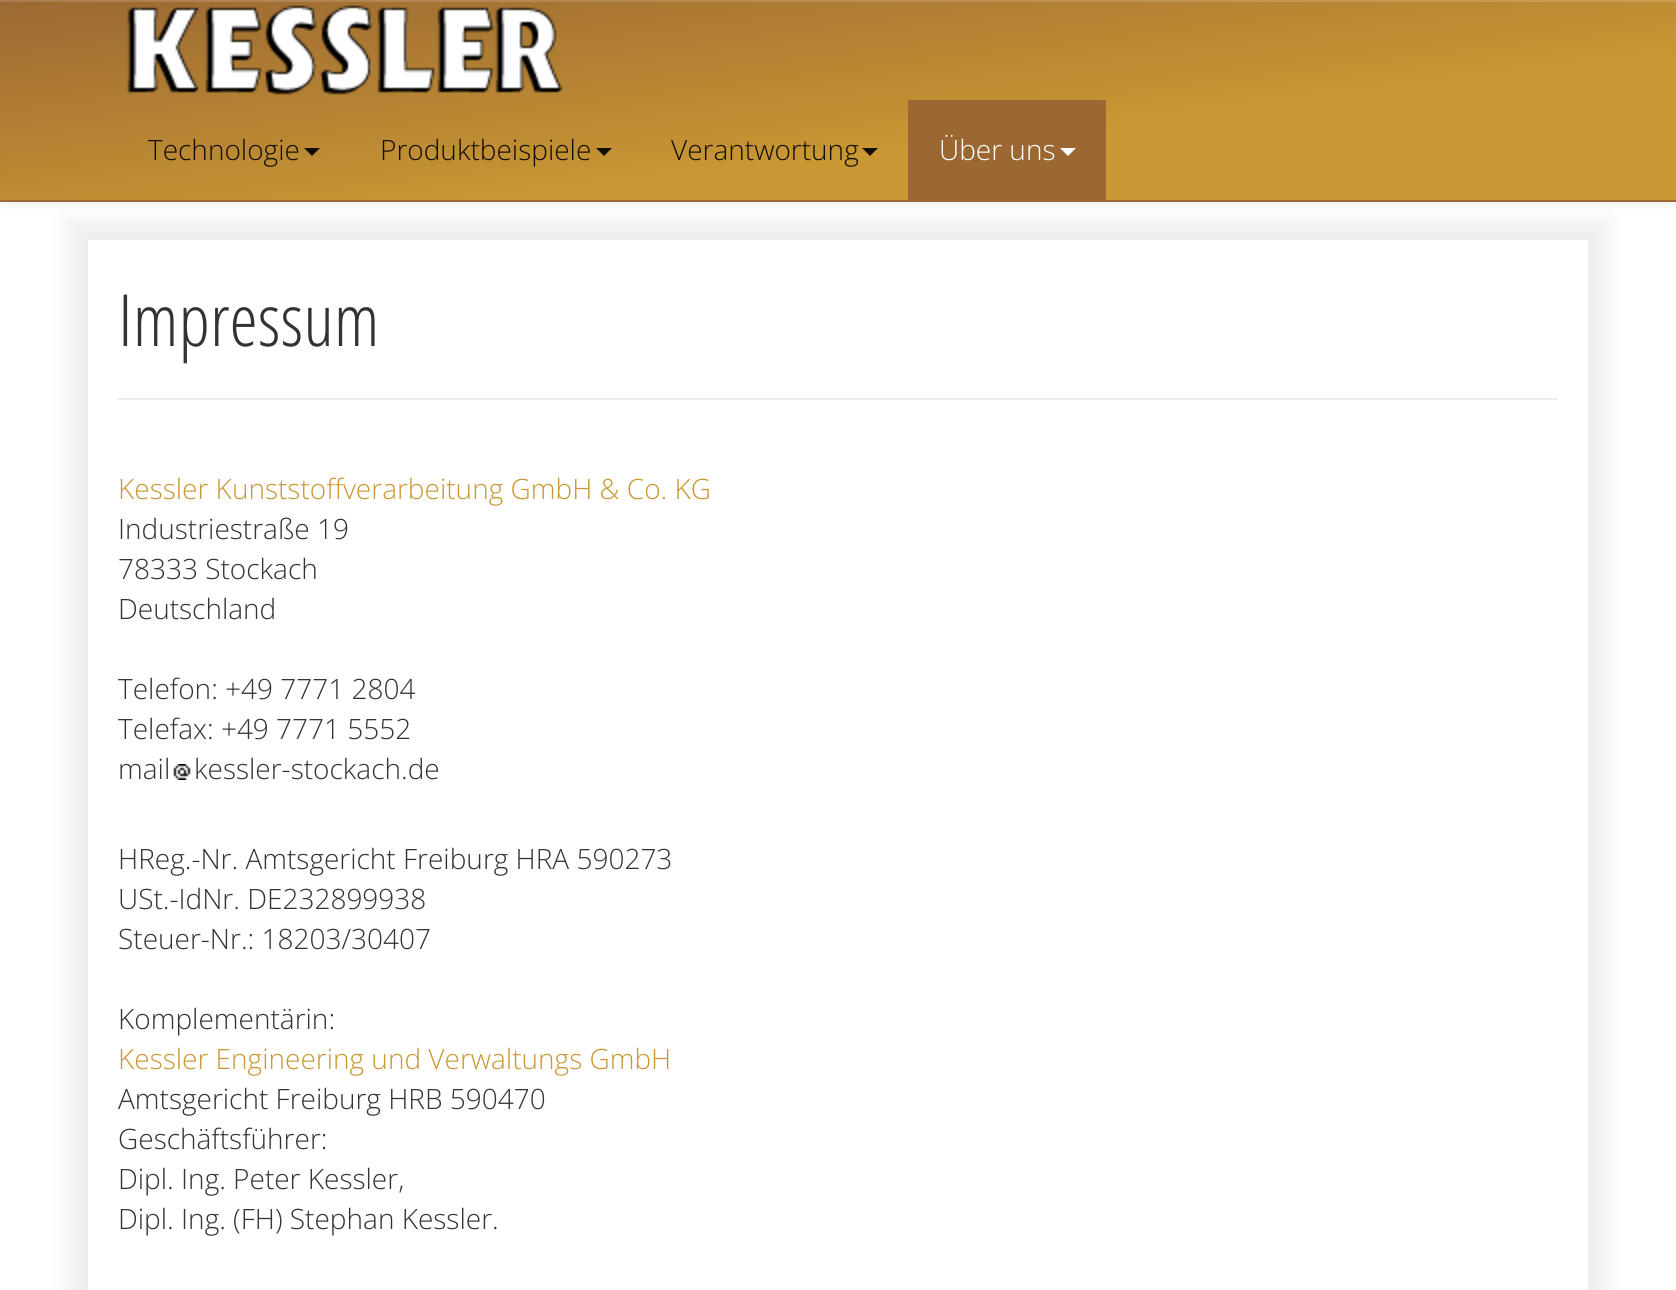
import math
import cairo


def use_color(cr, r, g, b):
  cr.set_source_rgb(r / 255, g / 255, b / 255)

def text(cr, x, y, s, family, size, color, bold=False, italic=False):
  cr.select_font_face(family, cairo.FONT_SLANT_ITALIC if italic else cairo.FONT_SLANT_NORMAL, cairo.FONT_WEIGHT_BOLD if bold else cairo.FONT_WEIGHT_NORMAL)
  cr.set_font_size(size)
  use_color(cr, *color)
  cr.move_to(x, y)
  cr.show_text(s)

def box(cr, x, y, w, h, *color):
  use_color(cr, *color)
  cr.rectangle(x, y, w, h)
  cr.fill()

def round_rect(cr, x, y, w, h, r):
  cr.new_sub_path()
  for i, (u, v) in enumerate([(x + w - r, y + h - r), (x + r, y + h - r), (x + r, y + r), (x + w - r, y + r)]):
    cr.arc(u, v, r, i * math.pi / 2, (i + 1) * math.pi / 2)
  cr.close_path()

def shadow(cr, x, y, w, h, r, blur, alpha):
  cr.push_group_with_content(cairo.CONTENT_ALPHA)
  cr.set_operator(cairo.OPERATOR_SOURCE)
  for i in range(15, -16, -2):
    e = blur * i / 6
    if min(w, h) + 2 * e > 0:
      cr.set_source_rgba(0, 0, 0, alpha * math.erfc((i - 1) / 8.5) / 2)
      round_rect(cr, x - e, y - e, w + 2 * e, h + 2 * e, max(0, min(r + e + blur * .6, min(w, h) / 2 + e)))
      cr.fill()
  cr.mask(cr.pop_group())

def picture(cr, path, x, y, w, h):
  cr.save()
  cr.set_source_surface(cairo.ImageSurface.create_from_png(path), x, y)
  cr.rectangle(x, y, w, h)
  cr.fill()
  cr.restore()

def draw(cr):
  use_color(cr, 255, 255, 255)
  cr.paint()
  use_color(cr, 0, 0, 0)
  shadow(cr, 0, 2, 1676, 202, 0, 5, 0.07)
  cr.save()
  cr.set_fill_rule(cairo.FILL_RULE_EVEN_ODD)
  cr.new_path()
  cr.move_to(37, 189)
  cr.line_to(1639, 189)
  cr.line_to(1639, 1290)
  cr.line_to(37, 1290)
  cr.close_path()
  cr.move_to(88, 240)
  cr.line_to(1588, 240)
  cr.line_to(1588, 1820)
  cr.line_to(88, 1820)
  cr.close_path()
  cr.clip()
  use_color(cr, 238, 238, 238)
  shadow(cr, 68, 220, 1540, 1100, 0, 10, 1)
  cr.restore()
  gradient = cairo.LinearGradient(814, -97, 862, 297)
  gradient.add_color_stop_rgba(0, 0.608, 0.412, 0.2, 1)
  gradient.add_color_stop_rgba(0.66, 0.792, 0.596, 0.2, 1)
  cr.set_source(gradient)
  cr.rectangle(0, 2, 1676, 198)
  cr.fill()
  gradient = cairo.LinearGradient(814, -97, 862, 297)
  gradient.add_color_stop_rgba(0, 0.667, 0.502, 0.322, 1)
  gradient.add_color_stop_rgba(0.66, 0.824, 0.655, 0.322, 1)
  cr.set_source(gradient)
  cr.rectangle(0, 0, 1676, 2)
  cr.fill()
  box(cr, 0, 200, 1676, 2, 155, 104, 51)
  picture(cr, "img_01.png", 127, 5, 436, 90)
  use_color(cr, 19, 14, 5)
  cr.new_path()
  cr.move_to(304, 148)
  cr.line_to(320, 148)
  cr.line_to(312, 156)
  cr.close_path()
  cr.fill()
  cr.new_path()
  cr.move_to(596, 148)
  cr.line_to(612, 148)
  cr.line_to(604, 156)
  cr.close_path()
  cr.fill()
  use_color(cr, 20, 15, 5)
  cr.new_path()
  cr.move_to(862, 148)
  cr.line_to(878, 148)
  cr.line_to(870, 156)
  cr.close_path()
  cr.fill()
  box(cr, 908, 100, 198, 100, 155, 104, 51)
  use_color(cr, 255, 255, 255)
  cr.new_path()
  cr.move_to(1060, 148)
  cr.line_to(1076, 148)
  cr.line_to(1068, 156)
  cr.close_path()
  cr.fill()
  box(cr, 118, 398, 1440, 2, 238, 238, 238)
  picture(cr, "img_02.png", 173, 764, 18, 16)
  text(cr, 148, 160, "Technologie", "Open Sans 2 Light", 28, (19, 14, 5))
  text(cr, 380, 160, "Produktbeispiele", "Open Sans 2 Light", 28, (19, 14, 5))
  text(cr, 671, 160, "Verantwortung", "Open Sans 2 Light", 28, (19, 14, 5))
  text(cr, 939, 160, "Über uns", "Open Sans 2 Light", 28, (255, 255, 255))
  text(cr, 118, 346, "Impressum", "Open Sans Light", 72, (51, 51, 51))
  text(cr, 118, 499, "Kessler Kunststoffverarbeitung GmbH & Co. KG", "Open Sans 2 Light", 28, (202, 151, 51))
  text(cr, 118, 539, "Industriestraße 19", "Open Sans 2 Light", 28, (51, 51, 51))
  text(cr, 118, 579, "78333 Stockach", "Open Sans 2 Light", 28, (51, 51, 51))
  text(cr, 118, 619, "Deutschland", "Open Sans 2 Light", 28, (51, 51, 51))
  text(cr, 118, 699, "Telefon: +49 7771 2804", "Open Sans 2 Light", 28, (51, 51, 51))
  text(cr, 118, 739, "Telefax: +49 7771 5552", "Open Sans 2 Light", 28, (51, 51, 51))
  text(cr, 118, 779, "mail", "Open Sans 2 Light", 28, (51, 51, 51))
  text(cr, 194, 779, "kessler-stockach.de", "Open Sans 2 Light", 28, (51, 51, 51))
  text(cr, 118, 869, "HReg.-Nr. Amtsgericht Freiburg HRA 590273", "Open Sans 2 Light", 28, (51, 51, 51))
  text(cr, 118, 909, "USt.-IdNr. DE232899938", "Open Sans 2 Light", 28, (51, 51, 51))
  text(cr, 118, 949, "Steuer-Nr.: 18203/30407", "Open Sans 2 Light", 28, (51, 51, 51))
  text(cr, 118, 1029, "Komplementärin:", "Open Sans 2 Light", 28, (51, 51, 51))
  text(cr, 118, 1069, "Kessler Engineering und Verwaltungs GmbH", "Open Sans 2 Light", 28, (202, 151, 51))
  text(cr, 118, 1109, "Amtsgericht Freiburg HRB 590470", "Open Sans 2 Light", 28, (51, 51, 51))
  text(cr, 118, 1149, "Geschäftsführer:", "Open Sans 2 Light", 28, (51, 51, 51))
  text(cr, 118, 1189, "Dipl. Ing. Peter Kessler,", "Open Sans 2 Light", 28, (51, 51, 51))
  text(cr, 118, 1229, "Dipl. Ing. (FH) Stephan Kessler.", "Open Sans 2 Light", 28, (51, 51, 51))


surface = cairo.ImageSurface(cairo.FORMAT_RGB24, 1676, 1290)
cr = cairo.Context(surface)
options = cairo.FontOptions()
options.set_hint_metrics(cairo.HINT_METRICS_OFF)
options.set_hint_style(cairo.HINT_STYLE_NONE)
cr.set_font_options(options)
cr.set_miter_limit(4)
draw(cr)
surface.write_to_png("out.png")
